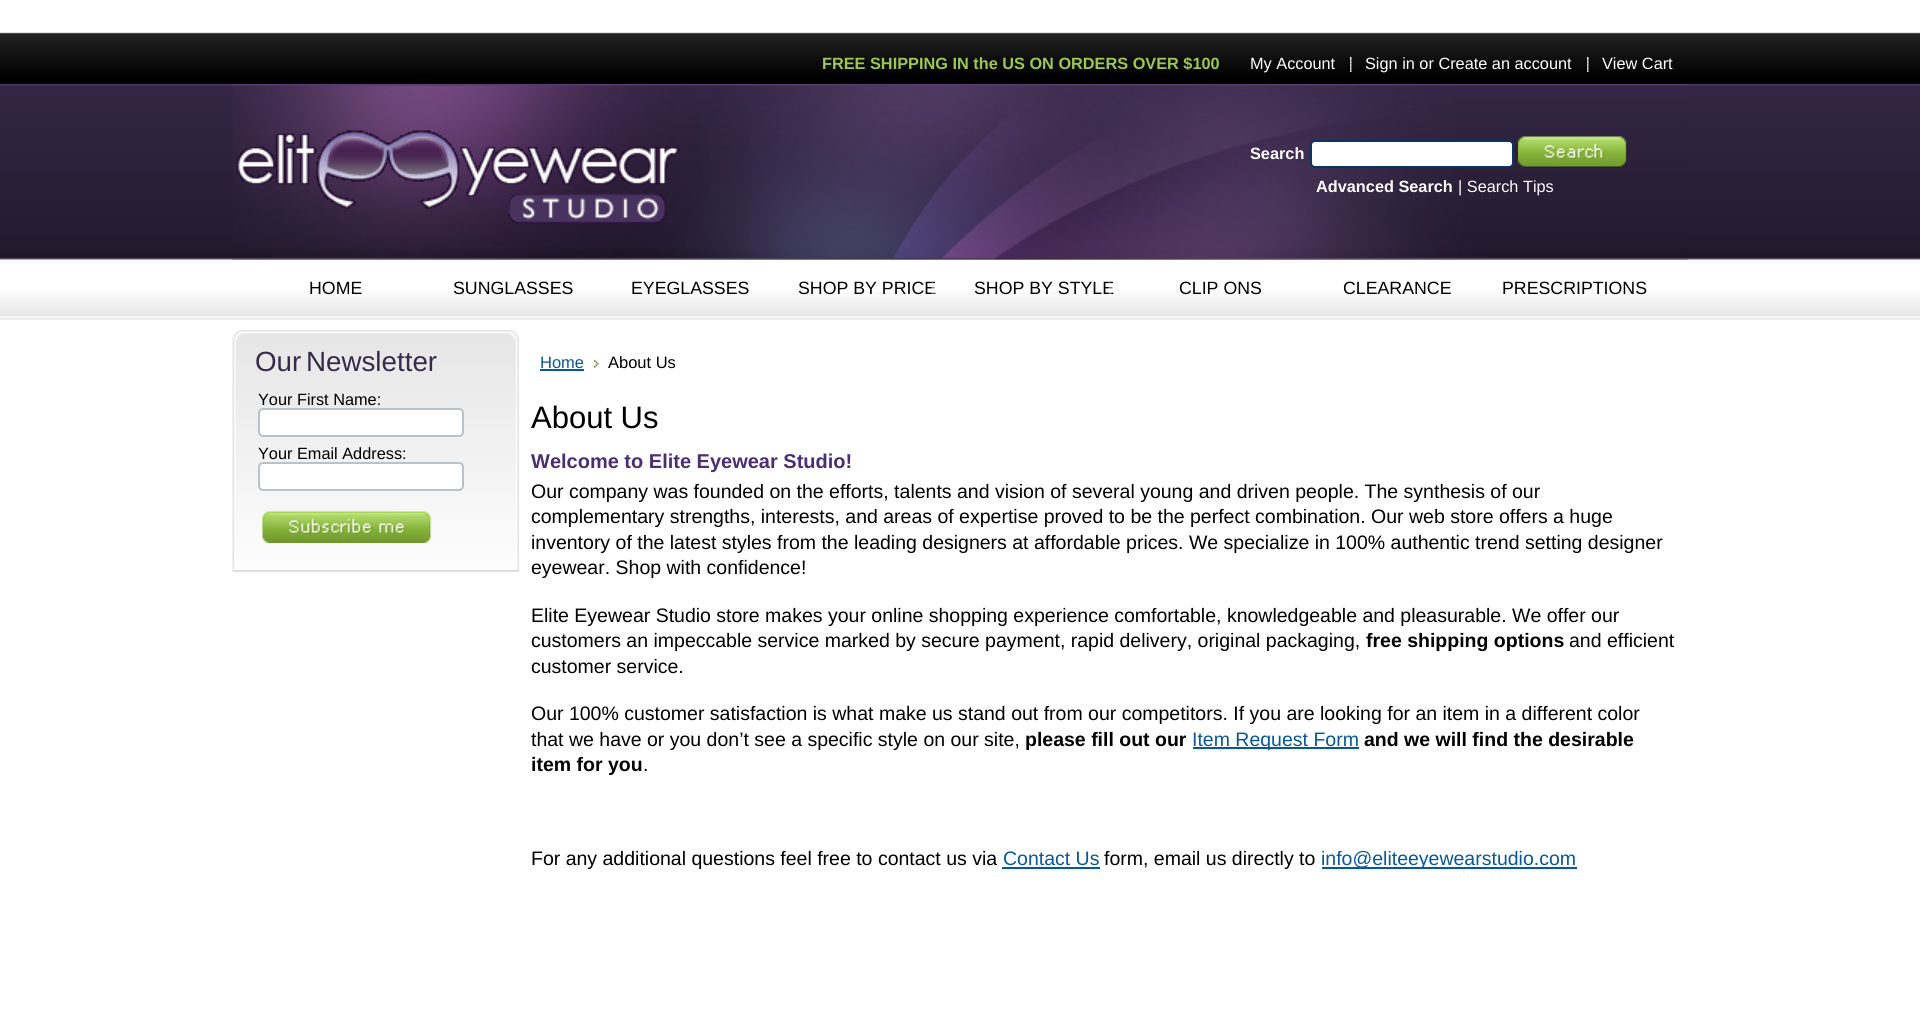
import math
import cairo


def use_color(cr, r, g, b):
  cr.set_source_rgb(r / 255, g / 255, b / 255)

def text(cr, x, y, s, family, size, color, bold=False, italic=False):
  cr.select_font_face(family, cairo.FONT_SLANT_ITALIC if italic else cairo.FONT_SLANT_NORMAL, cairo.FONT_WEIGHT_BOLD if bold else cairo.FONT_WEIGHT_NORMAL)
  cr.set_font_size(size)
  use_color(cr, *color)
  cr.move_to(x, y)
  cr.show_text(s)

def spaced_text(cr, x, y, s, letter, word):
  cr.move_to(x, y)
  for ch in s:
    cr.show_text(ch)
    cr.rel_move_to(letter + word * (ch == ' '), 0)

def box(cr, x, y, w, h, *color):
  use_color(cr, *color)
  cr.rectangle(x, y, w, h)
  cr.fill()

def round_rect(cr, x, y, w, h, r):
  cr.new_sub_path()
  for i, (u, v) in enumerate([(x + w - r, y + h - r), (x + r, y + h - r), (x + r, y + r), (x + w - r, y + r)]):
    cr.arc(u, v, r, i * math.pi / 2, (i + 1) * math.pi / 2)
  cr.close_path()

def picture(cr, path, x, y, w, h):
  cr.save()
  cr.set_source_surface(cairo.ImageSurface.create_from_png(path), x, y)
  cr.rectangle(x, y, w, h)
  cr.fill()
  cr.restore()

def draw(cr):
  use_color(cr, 255, 255, 255)
  cr.paint()
  picture(cr, "img_01.png", 0, 32, 1920, 288)
  picture(cr, "img_02.png", 1350, 57, 2, 15)
  picture(cr, "img_02.png", 1587, 57, 2, 15)
  picture(cr, "img_03.png", 232, 84, 1456, 176)
  picture(cr, "img_04.png", 236, 130, 444, 94)
  use_color(cr, 255, 255, 255)
  round_rect(cr, 1311, 141, 202, 26, 4)
  cr.fill_preserve()
  use_color(cr, 9, 52, 101)
  cr.stroke()
  picture(cr, "img_05.png", 1518, 136, 110, 32)
  picture(cr, "img_08.png", 232, 330, 287, 242)
  box(cr, 233, 570, 286, 2, 221, 221, 221)
  use_color(cr, 255, 255, 255)
  round_rect(cr, 259, 409, 204, 27, 4)
  cr.fill_preserve()
  use_color(cr, 186, 193, 199)
  cr.stroke()
  use_color(cr, 255, 255, 255)
  round_rect(cr, 259, 463, 204, 27, 4)
  cr.fill_preserve()
  use_color(cr, 186, 193, 199)
  cr.stroke()
  picture(cr, "img_09.png", 262, 511, 169, 32)
  box(cr, 540, 369, 44, 2, 7, 88, 153)
  picture(cr, "img_10.png", 594, 359, 5, 9)
  box(cr, 1193, 747, 166, 2, 7, 88, 153)
  box(cr, 1002, 867, 98, 2, 7, 88, 153)
  box(cr, 1322, 867, 255, 2, 7, 88, 153)
  text(cr, 822, 69, "FREE SHIPPING IN the US ON ORDERS OVER $100", "Liberation Sans", 16.3, (156, 200, 82), bold=True)
  text(cr, 1250, 69, "My Account", "Liberation Sans", 16.3, (255, 255, 255))
  text(cr, 1365, 69, "Sign in or Create an account", "Liberation Sans", 16.3, (255, 255, 255))
  text(cr, 1602, 69, "View Cart", "Liberation Sans", 16.3, (255, 255, 255))
  text(cr, 1250, 159, "Search", "Liberation Sans", 16.3, (255, 255, 255), bold=True)
  text(cr, 1316, 192, "Advanced Search", "Liberation Sans", 16.3, (255, 255, 255), bold=True)
  text(cr, 1458, 192, "| Search Tips", "Liberation Sans", 16.3, (255, 255, 255))
  text(cr, 309, 294, "HOME", "Liberation Sans", 17.75, (0, 0, 0))
  text(cr, 453, 294, "SUNGLASSES", "Liberation Sans", 17.75, (0, 0, 0))
  text(cr, 631, 294, "EYEGLASSES", "Liberation Sans", 17.75, (0, 0, 0))
  text(cr, 798, 294, "SHOP BY PRICE", "Liberation Sans", 17.75, (0, 0, 0))
  picture(cr, "img_06.png", 931, 282, 5, 12)
  text(cr, 974, 294, "SHOP BY STYLE", "Liberation Sans", 17.75, (0, 0, 0))
  picture(cr, "img_07.png", 1108, 282, 5, 12)
  text(cr, 1179, 294, "CLIP ONS", "Liberation Sans", 17.75, (0, 0, 0))
  text(cr, 1343, 294, "CLEARANCE", "Liberation Sans", 17.75, (0, 0, 0))
  text(cr, 1502, 294, "PRESCRIPTIONS", "Liberation Sans", 17.75, (0, 0, 0))
  cr.set_font_size(27.75)
  use_color(cr, 55, 43, 74)
  spaced_text(cr, 255, 371, "Our Newsletter", 0, -3)
  text(cr, 258, 405, "Your First Name:", "Liberation Sans", 16.3, (0, 0, 0))
  text(cr, 258, 459, "Your Email Address:", "Liberation Sans", 16.3, (0, 0, 0))
  text(cr, 540, 368, "Home", "Liberation Sans", 16.5, (7, 88, 153))
  text(cr, 608, 368, "About Us", "Liberation Sans", 16.5, (0, 0, 0))
  text(cr, 531, 428, "About Us", "Liberation Sans", 31, (0, 0, 0))
  text(cr, 531, 468, "Welcome to Elite Eyewear Studio!", "Liberation Sans", 20, (75, 47, 112), bold=True)
  text(cr, 531, 498, "Our company was founded on the efforts, talents and vision of several young and driven people. The synthesis of our", "Liberation Sans", 19.5, (0, 0, 0))
  text(cr, 531, 523, "complementary strengths, interests, and areas of expertise proved to be the perfect combination. Our web store offers a huge", "Liberation Sans", 19.5, (0, 0, 0))
  text(cr, 531, 549, "inventory of the latest styles from the leading designers at affordable prices. We specialize in 100% authentic trend setting designer", "Liberation Sans", 19.5, (0, 0, 0))
  text(cr, 531, 574, "eyewear. Shop with confidence!", "Liberation Sans", 19.5, (0, 0, 0))
  text(cr, 531, 622, "Elite Eyewear Studio store makes your online shopping experience comfortable, knowledgeable and pleasurable. We offer our", "Liberation Sans", 19.5, (0, 0, 0))
  text(cr, 531, 647, "customers an impeccable service marked by secure payment, rapid delivery, original packaging,", "Liberation Sans", 19.5, (0, 0, 0))
  text(cr, 1366, 647, "free shipping options", "Liberation Sans", 19.5, (0, 0, 0), bold=True)
  text(cr, 1569, 647, "and efficient", "Liberation Sans", 19.5, (0, 0, 0))
  text(cr, 531, 673, "customer service.", "Liberation Sans", 19.5, (0, 0, 0))
  text(cr, 531, 720, "Our 100% customer satisfaction is what make us stand out from our competitors. If you are looking for an item in a different color", "Liberation Sans", 19.5, (0, 0, 0))
  text(cr, 531, 746, "that we have or you don’t see a specific style on our site,", "Liberation Sans", 19.5, (0, 0, 0))
  text(cr, 1025, 746, "please fill out our", "Liberation Sans", 19.5, (0, 0, 0), bold=True)
  text(cr, 1192, 746, "Item Request Form", "Liberation Sans", 19.5, (7, 88, 153))
  text(cr, 1364, 746, "and we will find the desirable", "Liberation Sans", 19.5, (0, 0, 0), bold=True)
  text(cr, 531, 771, "item for you", "Liberation Sans", 19.5, (0, 0, 0), bold=True)
  text(cr, 643, 771, ".", "Liberation Sans", 19.5, (0, 0, 0))
  text(cr, 531, 865, "For any additional questions feel free to contact us via", "Liberation Sans", 19.5, (0, 0, 0))
  text(cr, 1003, 865, "Contact Us", "Liberation Sans", 19.5, (7, 88, 153))
  text(cr, 1104, 865, "form, email us directly to", "Liberation Sans", 19.5, (0, 0, 0))
  text(cr, 1321, 865, "info@eliteeyewearstudio.com", "Liberation Sans", 19.5, (7, 88, 153))


surface = cairo.ImageSurface(cairo.FORMAT_RGB24, 1920, 1027)
cr = cairo.Context(surface)
options = cairo.FontOptions()
options.set_hint_metrics(cairo.HINT_METRICS_OFF)
options.set_hint_style(cairo.HINT_STYLE_NONE)
cr.set_font_options(options)
cr.set_miter_limit(4)
draw(cr)
surface.write_to_png("out.png")
